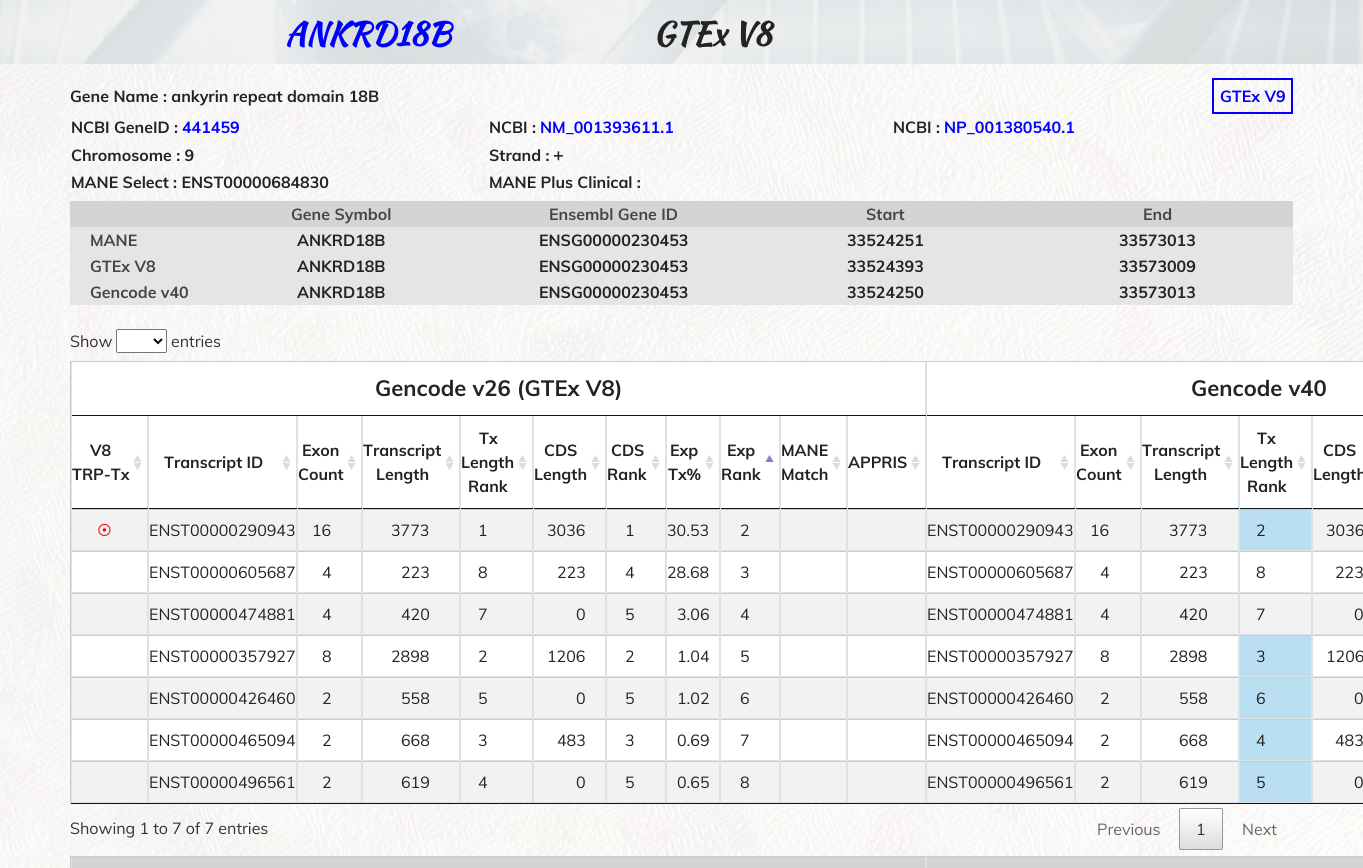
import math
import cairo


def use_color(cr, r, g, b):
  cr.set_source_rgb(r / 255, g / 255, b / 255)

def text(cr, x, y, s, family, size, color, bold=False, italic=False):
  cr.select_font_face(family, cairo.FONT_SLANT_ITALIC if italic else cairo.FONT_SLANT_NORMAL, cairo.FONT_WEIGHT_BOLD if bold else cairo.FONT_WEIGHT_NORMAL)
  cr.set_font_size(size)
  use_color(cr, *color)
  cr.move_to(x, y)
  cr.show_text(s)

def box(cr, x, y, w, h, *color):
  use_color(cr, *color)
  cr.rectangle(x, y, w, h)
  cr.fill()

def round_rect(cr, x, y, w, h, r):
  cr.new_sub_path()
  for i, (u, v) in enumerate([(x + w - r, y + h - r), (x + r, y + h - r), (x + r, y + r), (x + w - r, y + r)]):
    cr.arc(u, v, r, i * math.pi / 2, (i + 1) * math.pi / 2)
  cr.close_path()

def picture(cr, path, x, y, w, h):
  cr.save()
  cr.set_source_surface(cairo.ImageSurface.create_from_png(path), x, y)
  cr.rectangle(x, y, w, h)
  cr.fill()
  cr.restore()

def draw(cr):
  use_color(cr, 255, 255, 255)
  cr.paint()
  picture(cr, "img_01.png", 0, 0, 1363, 64)
  picture(cr, "img_02.png", 0, 64, 1363, 10)
  picture(cr, "img_03.png", 0, 74, 1363, 794)
  cr.rectangle(1213, 79, 79, 34)
  use_color(cr, 0, 0, 255)
  cr.stroke()
  box(cr, 70, 227, 1223, 78, 229, 229, 229)
  box(cr, 70, 201, 1223, 26, 212, 212, 212)
  use_color(cr, 255, 255, 255)
  round_rect(cr, 116.5, 329.5, 50, 23, 1.5)
  cr.fill_preserve()
  use_color(cr, 118, 118, 118)
  cr.set_line_width(1)
  cr.stroke()
  cr.new_path()
  cr.move_to(154, 339)
  cr.line_to(158, 343)
  cr.line_to(162, 339)
  use_color(cr, 0, 0, 0)
  cr.set_line_width(2)
  cr.stroke()
  box(cr, 72, 362, 1291, 398, 255, 255, 255)
  box(cr, 70, 361, 1293, 1, 204, 204, 204)
  box(cr, 70, 803, 1293, 1, 17, 17, 17)
  box(cr, 70, 361, 1, 443, 204, 204, 204)
  box(cr, 925, 362, 1, 147, 222, 226, 230)
  box(cr, 71, 415, 1292, 1, 17, 17, 17)
  box(cr, 71, 362, 1, 54, 222, 226, 230)
  box(cr, 926, 362, 1, 54, 222, 226, 230)
  picture(cr, "img_04.png", 133, 455, 9, 15)
  box(cr, 147, 416, 1, 93, 222, 226, 230)
  box(cr, 71, 508, 77, 1, 17, 17, 17)
  box(cr, 71, 416, 1, 93, 222, 226, 230)
  picture(cr, "img_04.png", 282, 455, 9, 15)
  box(cr, 296, 416, 1, 93, 222, 226, 230)
  box(cr, 148, 508, 149, 1, 17, 17, 17)
  box(cr, 148, 416, 1, 93, 222, 226, 230)
  picture(cr, "img_04.png", 347, 455, 9, 15)
  box(cr, 361, 416, 1, 93, 222, 226, 230)
  box(cr, 297, 508, 65, 1, 17, 17, 17)
  box(cr, 297, 416, 1, 93, 222, 226, 230)
  picture(cr, "img_04.png", 445, 455, 9, 15)
  box(cr, 459, 416, 1, 93, 222, 226, 230)
  box(cr, 362, 508, 98, 1, 17, 17, 17)
  box(cr, 362, 416, 1, 93, 222, 226, 230)
  picture(cr, "img_04.png", 518, 455, 9, 15)
  box(cr, 532, 416, 1, 93, 222, 226, 230)
  box(cr, 460, 508, 73, 1, 17, 17, 17)
  box(cr, 460, 416, 1, 93, 222, 226, 230)
  picture(cr, "img_04.png", 591, 455, 9, 15)
  box(cr, 605, 416, 1, 93, 222, 226, 230)
  box(cr, 533, 508, 73, 1, 17, 17, 17)
  box(cr, 533, 416, 1, 93, 222, 226, 230)
  picture(cr, "img_04.png", 651, 455, 9, 15)
  box(cr, 665, 416, 1, 93, 222, 226, 230)
  box(cr, 606, 508, 60, 1, 17, 17, 17)
  box(cr, 606, 416, 1, 93, 222, 226, 230)
  picture(cr, "img_04.png", 705, 455, 9, 15)
  box(cr, 719, 416, 1, 93, 222, 226, 230)
  box(cr, 666, 508, 54, 1, 17, 17, 17)
  box(cr, 666, 416, 1, 93, 222, 226, 230)
  picture(cr, "img_05.png", 765, 455, 9, 7)
  box(cr, 779, 416, 1, 93, 222, 226, 230)
  box(cr, 720, 508, 60, 1, 17, 17, 17)
  box(cr, 720, 416, 1, 93, 222, 226, 230)
  picture(cr, "img_04.png", 832, 455, 9, 15)
  box(cr, 846, 416, 1, 93, 222, 226, 230)
  box(cr, 780, 508, 146, 1, 17, 17, 17)
  box(cr, 780, 416, 1, 93, 222, 226, 230)
  picture(cr, "img_04.png", 911, 455, 9, 15)
  box(cr, 847, 416, 1, 93, 222, 226, 230)
  picture(cr, "img_04.png", 1060, 455, 9, 15)
  box(cr, 1074, 416, 1, 93, 222, 226, 230)
  box(cr, 926, 508, 149, 1, 17, 17, 17)
  box(cr, 926, 416, 1, 93, 222, 226, 230)
  picture(cr, "img_04.png", 1126, 455, 9, 15)
  box(cr, 1140, 416, 1, 93, 222, 226, 230)
  box(cr, 1075, 508, 66, 1, 17, 17, 17)
  box(cr, 1075, 416, 1, 93, 222, 226, 230)
  picture(cr, "img_04.png", 1224, 455, 9, 15)
  box(cr, 1238, 416, 1, 93, 222, 226, 230)
  box(cr, 1141, 508, 98, 1, 17, 17, 17)
  box(cr, 1141, 416, 1, 93, 222, 226, 230)
  picture(cr, "img_04.png", 1297, 455, 9, 15)
  box(cr, 1311, 416, 1, 93, 222, 226, 230)
  box(cr, 1239, 508, 124, 1, 17, 17, 17)
  box(cr, 1239, 416, 1, 93, 222, 226, 230)
  box(cr, 1312, 416, 1, 93, 222, 226, 230)
  box(cr, 72, 510, 1291, 40, 242, 242, 242)
  box(cr, 71, 509, 1292, 1, 204, 204, 204)
  box(cr, 147, 509, 1, 42, 222, 226, 230)
  box(cr, 71, 550, 77, 1, 222, 226, 230)
  box(cr, 71, 509, 1, 42, 222, 226, 230)
  box(cr, 296, 509, 1, 42, 222, 226, 230)
  box(cr, 148, 550, 149, 1, 222, 226, 230)
  box(cr, 148, 509, 1, 42, 222, 226, 230)
  box(cr, 361, 509, 1, 42, 222, 226, 230)
  box(cr, 297, 550, 65, 1, 222, 226, 230)
  box(cr, 297, 509, 1, 42, 222, 226, 230)
  box(cr, 459, 509, 1, 42, 222, 226, 230)
  box(cr, 362, 550, 98, 1, 222, 226, 230)
  box(cr, 362, 509, 1, 42, 222, 226, 230)
  box(cr, 532, 509, 1, 42, 222, 226, 230)
  box(cr, 460, 550, 73, 1, 222, 226, 230)
  box(cr, 460, 509, 1, 42, 222, 226, 230)
  box(cr, 605, 509, 1, 42, 222, 226, 230)
  box(cr, 533, 550, 73, 1, 222, 226, 230)
  box(cr, 533, 509, 1, 42, 222, 226, 230)
  box(cr, 665, 509, 1, 42, 222, 226, 230)
  box(cr, 606, 550, 60, 1, 222, 226, 230)
  box(cr, 606, 509, 1, 42, 222, 226, 230)
  box(cr, 719, 509, 1, 42, 222, 226, 230)
  box(cr, 666, 550, 54, 1, 222, 226, 230)
  box(cr, 666, 509, 1, 42, 222, 226, 230)
  box(cr, 779, 509, 1, 42, 222, 226, 230)
  box(cr, 720, 550, 60, 1, 222, 226, 230)
  box(cr, 720, 509, 1, 42, 222, 226, 230)
  box(cr, 846, 509, 1, 42, 222, 226, 230)
  box(cr, 780, 550, 67, 1, 222, 226, 230)
  box(cr, 780, 509, 1, 42, 222, 226, 230)
  box(cr, 925, 509, 1, 42, 222, 226, 230)
  box(cr, 847, 550, 79, 1, 222, 226, 230)
  box(cr, 847, 509, 1, 42, 222, 226, 230)
  box(cr, 1074, 509, 1, 42, 222, 226, 230)
  box(cr, 926, 550, 149, 1, 222, 226, 230)
  box(cr, 926, 509, 1, 42, 222, 226, 230)
  box(cr, 1140, 509, 1, 42, 222, 226, 230)
  box(cr, 1075, 550, 66, 1, 222, 226, 230)
  box(cr, 1075, 509, 1, 42, 222, 226, 230)
  box(cr, 1238, 509, 1, 42, 222, 226, 230)
  box(cr, 1141, 550, 98, 1, 222, 226, 230)
  box(cr, 1141, 509, 1, 42, 222, 226, 230)
  box(cr, 1240, 510, 71, 40, 187, 223, 242)
  box(cr, 1311, 509, 1, 42, 222, 226, 230)
  box(cr, 1239, 550, 124, 1, 222, 226, 230)
  box(cr, 1239, 509, 1, 42, 222, 226, 230)
  box(cr, 1312, 509, 1, 42, 222, 226, 230)
  box(cr, 71, 551, 1292, 1, 204, 204, 204)
  box(cr, 147, 551, 1, 42, 222, 226, 230)
  box(cr, 71, 592, 77, 1, 222, 226, 230)
  box(cr, 71, 551, 1, 42, 222, 226, 230)
  box(cr, 296, 551, 1, 42, 222, 226, 230)
  box(cr, 148, 592, 149, 1, 222, 226, 230)
  box(cr, 148, 551, 1, 42, 222, 226, 230)
  box(cr, 361, 551, 1, 42, 222, 226, 230)
  box(cr, 297, 592, 65, 1, 222, 226, 230)
  box(cr, 297, 551, 1, 42, 222, 226, 230)
  box(cr, 459, 551, 1, 42, 222, 226, 230)
  box(cr, 362, 592, 98, 1, 222, 226, 230)
  box(cr, 362, 551, 1, 42, 222, 226, 230)
  box(cr, 532, 551, 1, 42, 222, 226, 230)
  box(cr, 460, 592, 73, 1, 222, 226, 230)
  box(cr, 460, 551, 1, 42, 222, 226, 230)
  box(cr, 605, 551, 1, 42, 222, 226, 230)
  box(cr, 533, 592, 73, 1, 222, 226, 230)
  box(cr, 533, 551, 1, 42, 222, 226, 230)
  box(cr, 665, 551, 1, 42, 222, 226, 230)
  box(cr, 606, 592, 60, 1, 222, 226, 230)
  box(cr, 606, 551, 1, 42, 222, 226, 230)
  box(cr, 719, 551, 1, 42, 222, 226, 230)
  box(cr, 666, 592, 54, 1, 222, 226, 230)
  box(cr, 666, 551, 1, 42, 222, 226, 230)
  box(cr, 779, 551, 1, 42, 222, 226, 230)
  box(cr, 720, 592, 60, 1, 222, 226, 230)
  box(cr, 720, 551, 1, 42, 222, 226, 230)
  box(cr, 846, 551, 1, 42, 222, 226, 230)
  box(cr, 780, 592, 67, 1, 222, 226, 230)
  box(cr, 780, 551, 1, 42, 222, 226, 230)
  box(cr, 925, 551, 1, 42, 222, 226, 230)
  box(cr, 847, 592, 79, 1, 222, 226, 230)
  box(cr, 847, 551, 1, 42, 222, 226, 230)
  box(cr, 1074, 551, 1, 42, 222, 226, 230)
  box(cr, 926, 592, 149, 1, 222, 226, 230)
  box(cr, 926, 551, 1, 42, 222, 226, 230)
  box(cr, 1140, 551, 1, 42, 222, 226, 230)
  box(cr, 1075, 592, 66, 1, 222, 226, 230)
  box(cr, 1075, 551, 1, 42, 222, 226, 230)
  box(cr, 1238, 551, 1, 42, 222, 226, 230)
  box(cr, 1141, 592, 98, 1, 222, 226, 230)
  box(cr, 1141, 551, 1, 42, 222, 226, 230)
  box(cr, 1311, 551, 1, 42, 222, 226, 230)
  box(cr, 1239, 592, 124, 1, 222, 226, 230)
  box(cr, 1239, 551, 1, 42, 222, 226, 230)
  box(cr, 1312, 551, 1, 42, 222, 226, 230)
  box(cr, 72, 594, 1291, 40, 242, 242, 242)
  box(cr, 71, 593, 1292, 1, 204, 204, 204)
  box(cr, 147, 593, 1, 42, 222, 226, 230)
  box(cr, 71, 634, 77, 1, 222, 226, 230)
  box(cr, 71, 593, 1, 42, 222, 226, 230)
  box(cr, 296, 593, 1, 42, 222, 226, 230)
  box(cr, 148, 634, 149, 1, 222, 226, 230)
  box(cr, 148, 593, 1, 42, 222, 226, 230)
  box(cr, 361, 593, 1, 42, 222, 226, 230)
  box(cr, 297, 634, 65, 1, 222, 226, 230)
  box(cr, 297, 593, 1, 42, 222, 226, 230)
  box(cr, 459, 593, 1, 42, 222, 226, 230)
  box(cr, 362, 634, 98, 1, 222, 226, 230)
  box(cr, 362, 593, 1, 42, 222, 226, 230)
  box(cr, 532, 593, 1, 42, 222, 226, 230)
  box(cr, 460, 634, 73, 1, 222, 226, 230)
  box(cr, 460, 593, 1, 42, 222, 226, 230)
  box(cr, 605, 593, 1, 42, 222, 226, 230)
  box(cr, 533, 634, 73, 1, 222, 226, 230)
  box(cr, 533, 593, 1, 42, 222, 226, 230)
  box(cr, 665, 593, 1, 42, 222, 226, 230)
  box(cr, 606, 634, 60, 1, 222, 226, 230)
  box(cr, 606, 593, 1, 42, 222, 226, 230)
  box(cr, 719, 593, 1, 42, 222, 226, 230)
  box(cr, 666, 634, 54, 1, 222, 226, 230)
  box(cr, 666, 593, 1, 42, 222, 226, 230)
  box(cr, 779, 593, 1, 42, 222, 226, 230)
  box(cr, 720, 634, 60, 1, 222, 226, 230)
  box(cr, 720, 593, 1, 42, 222, 226, 230)
  box(cr, 846, 593, 1, 42, 222, 226, 230)
  box(cr, 780, 634, 67, 1, 222, 226, 230)
  box(cr, 780, 593, 1, 42, 222, 226, 230)
  box(cr, 925, 593, 1, 42, 222, 226, 230)
  box(cr, 847, 634, 79, 1, 222, 226, 230)
  box(cr, 847, 593, 1, 42, 222, 226, 230)
  box(cr, 1074, 593, 1, 42, 222, 226, 230)
  box(cr, 926, 634, 149, 1, 222, 226, 230)
  box(cr, 926, 593, 1, 42, 222, 226, 230)
  box(cr, 1140, 593, 1, 42, 222, 226, 230)
  box(cr, 1075, 634, 66, 1, 222, 226, 230)
  box(cr, 1075, 593, 1, 42, 222, 226, 230)
  box(cr, 1238, 593, 1, 42, 222, 226, 230)
  box(cr, 1141, 634, 98, 1, 222, 226, 230)
  box(cr, 1141, 593, 1, 42, 222, 226, 230)
  box(cr, 1311, 593, 1, 42, 222, 226, 230)
  box(cr, 1239, 634, 124, 1, 222, 226, 230)
  box(cr, 1239, 593, 1, 42, 222, 226, 230)
  box(cr, 1312, 593, 1, 42, 222, 226, 230)
  box(cr, 71, 635, 1292, 1, 204, 204, 204)
  box(cr, 147, 635, 1, 42, 222, 226, 230)
  box(cr, 71, 676, 77, 1, 222, 226, 230)
  box(cr, 71, 635, 1, 42, 222, 226, 230)
  box(cr, 296, 635, 1, 42, 222, 226, 230)
  box(cr, 148, 676, 149, 1, 222, 226, 230)
  box(cr, 148, 635, 1, 42, 222, 226, 230)
  box(cr, 361, 635, 1, 42, 222, 226, 230)
  box(cr, 297, 676, 65, 1, 222, 226, 230)
  box(cr, 297, 635, 1, 42, 222, 226, 230)
  box(cr, 459, 635, 1, 42, 222, 226, 230)
  box(cr, 362, 676, 98, 1, 222, 226, 230)
  box(cr, 362, 635, 1, 42, 222, 226, 230)
  box(cr, 532, 635, 1, 42, 222, 226, 230)
  box(cr, 460, 676, 73, 1, 222, 226, 230)
  box(cr, 460, 635, 1, 42, 222, 226, 230)
  box(cr, 605, 635, 1, 42, 222, 226, 230)
  box(cr, 533, 676, 73, 1, 222, 226, 230)
  box(cr, 533, 635, 1, 42, 222, 226, 230)
  box(cr, 665, 635, 1, 42, 222, 226, 230)
  box(cr, 606, 676, 60, 1, 222, 226, 230)
  box(cr, 606, 635, 1, 42, 222, 226, 230)
  box(cr, 719, 635, 1, 42, 222, 226, 230)
  box(cr, 666, 676, 54, 1, 222, 226, 230)
  box(cr, 666, 635, 1, 42, 222, 226, 230)
  box(cr, 779, 635, 1, 42, 222, 226, 230)
  box(cr, 720, 676, 60, 1, 222, 226, 230)
  box(cr, 720, 635, 1, 42, 222, 226, 230)
  box(cr, 846, 635, 1, 42, 222, 226, 230)
  box(cr, 780, 676, 67, 1, 222, 226, 230)
  box(cr, 780, 635, 1, 42, 222, 226, 230)
  box(cr, 925, 635, 1, 42, 222, 226, 230)
  box(cr, 847, 676, 79, 1, 222, 226, 230)
  box(cr, 847, 635, 1, 42, 222, 226, 230)
  box(cr, 1074, 635, 1, 42, 222, 226, 230)
  box(cr, 926, 676, 149, 1, 222, 226, 230)
  box(cr, 926, 635, 1, 42, 222, 226, 230)
  box(cr, 1140, 635, 1, 42, 222, 226, 230)
  box(cr, 1075, 676, 66, 1, 222, 226, 230)
  box(cr, 1075, 635, 1, 42, 222, 226, 230)
  box(cr, 1238, 635, 1, 42, 222, 226, 230)
  box(cr, 1141, 676, 98, 1, 222, 226, 230)
  box(cr, 1141, 635, 1, 42, 222, 226, 230)
  box(cr, 1240, 636, 71, 40, 187, 223, 242)
  box(cr, 1311, 635, 1, 42, 222, 226, 230)
  box(cr, 1239, 676, 124, 1, 222, 226, 230)
  box(cr, 1239, 635, 1, 42, 222, 226, 230)
  box(cr, 1312, 635, 1, 42, 222, 226, 230)
  box(cr, 72, 678, 1291, 40, 242, 242, 242)
  box(cr, 71, 677, 1292, 1, 204, 204, 204)
  box(cr, 147, 677, 1, 42, 222, 226, 230)
  box(cr, 71, 718, 77, 1, 222, 226, 230)
  box(cr, 71, 677, 1, 42, 222, 226, 230)
  box(cr, 296, 677, 1, 42, 222, 226, 230)
  box(cr, 148, 718, 149, 1, 222, 226, 230)
  box(cr, 148, 677, 1, 42, 222, 226, 230)
  box(cr, 361, 677, 1, 42, 222, 226, 230)
  box(cr, 297, 718, 65, 1, 222, 226, 230)
  box(cr, 297, 677, 1, 42, 222, 226, 230)
  box(cr, 459, 677, 1, 42, 222, 226, 230)
  box(cr, 362, 718, 98, 1, 222, 226, 230)
  box(cr, 362, 677, 1, 42, 222, 226, 230)
  box(cr, 532, 677, 1, 42, 222, 226, 230)
  box(cr, 460, 718, 73, 1, 222, 226, 230)
  box(cr, 460, 677, 1, 42, 222, 226, 230)
  box(cr, 605, 677, 1, 42, 222, 226, 230)
  box(cr, 533, 718, 73, 1, 222, 226, 230)
  box(cr, 533, 677, 1, 42, 222, 226, 230)
  box(cr, 665, 677, 1, 42, 222, 226, 230)
  box(cr, 606, 718, 60, 1, 222, 226, 230)
  box(cr, 606, 677, 1, 42, 222, 226, 230)
  box(cr, 719, 677, 1, 42, 222, 226, 230)
  box(cr, 666, 718, 54, 1, 222, 226, 230)
  box(cr, 666, 677, 1, 42, 222, 226, 230)
  box(cr, 779, 677, 1, 42, 222, 226, 230)
  box(cr, 720, 718, 60, 1, 222, 226, 230)
  box(cr, 720, 677, 1, 42, 222, 226, 230)
  box(cr, 846, 677, 1, 42, 222, 226, 230)
  box(cr, 780, 718, 67, 1, 222, 226, 230)
  box(cr, 780, 677, 1, 42, 222, 226, 230)
  box(cr, 925, 677, 1, 42, 222, 226, 230)
  box(cr, 847, 718, 79, 1, 222, 226, 230)
  box(cr, 847, 677, 1, 42, 222, 226, 230)
  box(cr, 1074, 677, 1, 42, 222, 226, 230)
  box(cr, 926, 718, 149, 1, 222, 226, 230)
  box(cr, 926, 677, 1, 42, 222, 226, 230)
  box(cr, 1140, 677, 1, 42, 222, 226, 230)
  box(cr, 1075, 718, 66, 1, 222, 226, 230)
  box(cr, 1075, 677, 1, 42, 222, 226, 230)
  box(cr, 1238, 677, 1, 42, 222, 226, 230)
  box(cr, 1141, 718, 98, 1, 222, 226, 230)
  box(cr, 1141, 677, 1, 42, 222, 226, 230)
  box(cr, 1240, 678, 71, 40, 187, 223, 242)
  box(cr, 1311, 677, 1, 42, 222, 226, 230)
  box(cr, 1239, 718, 124, 1, 222, 226, 230)
  box(cr, 1239, 677, 1, 42, 222, 226, 230)
  box(cr, 1312, 677, 1, 42, 222, 226, 230)
  box(cr, 71, 719, 1292, 1, 204, 204, 204)
  box(cr, 147, 719, 1, 42, 222, 226, 230)
  box(cr, 71, 760, 77, 1, 222, 226, 230)
  box(cr, 71, 719, 1, 42, 222, 226, 230)
  box(cr, 296, 719, 1, 42, 222, 226, 230)
  box(cr, 148, 760, 149, 1, 222, 226, 230)
  box(cr, 148, 719, 1, 42, 222, 226, 230)
  box(cr, 361, 719, 1, 42, 222, 226, 230)
  box(cr, 297, 760, 65, 1, 222, 226, 230)
  box(cr, 297, 719, 1, 42, 222, 226, 230)
  box(cr, 459, 719, 1, 42, 222, 226, 230)
  box(cr, 362, 760, 98, 1, 222, 226, 230)
  box(cr, 362, 719, 1, 42, 222, 226, 230)
  box(cr, 532, 719, 1, 42, 222, 226, 230)
  box(cr, 460, 760, 73, 1, 222, 226, 230)
  box(cr, 460, 719, 1, 42, 222, 226, 230)
  box(cr, 605, 719, 1, 42, 222, 226, 230)
  box(cr, 533, 760, 73, 1, 222, 226, 230)
  box(cr, 533, 719, 1, 42, 222, 226, 230)
  box(cr, 665, 719, 1, 42, 222, 226, 230)
  box(cr, 606, 760, 60, 1, 222, 226, 230)
  box(cr, 606, 719, 1, 42, 222, 226, 230)
  box(cr, 719, 719, 1, 42, 222, 226, 230)
  box(cr, 666, 760, 54, 1, 222, 226, 230)
  box(cr, 666, 719, 1, 42, 222, 226, 230)
  box(cr, 779, 719, 1, 42, 222, 226, 230)
  box(cr, 720, 760, 60, 1, 222, 226, 230)
  box(cr, 720, 719, 1, 42, 222, 226, 230)
  box(cr, 846, 719, 1, 42, 222, 226, 230)
  box(cr, 780, 760, 67, 1, 222, 226, 230)
  box(cr, 780, 719, 1, 42, 222, 226, 230)
  box(cr, 925, 719, 1, 42, 222, 226, 230)
  box(cr, 847, 760, 79, 1, 222, 226, 230)
  box(cr, 847, 719, 1, 42, 222, 226, 230)
  box(cr, 1074, 719, 1, 42, 222, 226, 230)
  box(cr, 926, 760, 149, 1, 222, 226, 230)
  box(cr, 926, 719, 1, 42, 222, 226, 230)
  box(cr, 1140, 719, 1, 42, 222, 226, 230)
  box(cr, 1075, 760, 66, 1, 222, 226, 230)
  box(cr, 1075, 719, 1, 42, 222, 226, 230)
  box(cr, 1238, 719, 1, 42, 222, 226, 230)
  box(cr, 1141, 760, 98, 1, 222, 226, 230)
  box(cr, 1141, 719, 1, 42, 222, 226, 230)
  box(cr, 1240, 720, 71, 40, 187, 223, 242)
  box(cr, 1311, 719, 1, 42, 222, 226, 230)
  box(cr, 1239, 760, 124, 1, 222, 226, 230)
  box(cr, 1239, 719, 1, 42, 222, 226, 230)
  box(cr, 1312, 719, 1, 42, 222, 226, 230)
  box(cr, 72, 762, 1291, 40, 242, 242, 242)
  box(cr, 71, 761, 1292, 1, 204, 204, 204)
  box(cr, 147, 761, 1, 42, 222, 226, 230)
  box(cr, 71, 802, 77, 1, 222, 226, 230)
  box(cr, 71, 761, 1, 42, 222, 226, 230)
  box(cr, 296, 761, 1, 42, 222, 226, 230)
  box(cr, 148, 802, 149, 1, 222, 226, 230)
  box(cr, 148, 761, 1, 42, 222, 226, 230)
  box(cr, 361, 761, 1, 42, 222, 226, 230)
  box(cr, 297, 802, 65, 1, 222, 226, 230)
  box(cr, 297, 761, 1, 42, 222, 226, 230)
  box(cr, 459, 761, 1, 42, 222, 226, 230)
  box(cr, 362, 802, 98, 1, 222, 226, 230)
  box(cr, 362, 761, 1, 42, 222, 226, 230)
  box(cr, 532, 761, 1, 42, 222, 226, 230)
  box(cr, 460, 802, 73, 1, 222, 226, 230)
  box(cr, 460, 761, 1, 42, 222, 226, 230)
  box(cr, 605, 761, 1, 42, 222, 226, 230)
  box(cr, 533, 802, 73, 1, 222, 226, 230)
  box(cr, 533, 761, 1, 42, 222, 226, 230)
  box(cr, 665, 761, 1, 42, 222, 226, 230)
  box(cr, 606, 802, 60, 1, 222, 226, 230)
  box(cr, 606, 761, 1, 42, 222, 226, 230)
  box(cr, 719, 761, 1, 42, 222, 226, 230)
  box(cr, 666, 802, 54, 1, 222, 226, 230)
  box(cr, 666, 761, 1, 42, 222, 226, 230)
  box(cr, 779, 761, 1, 42, 222, 226, 230)
  box(cr, 720, 802, 60, 1, 222, 226, 230)
  box(cr, 720, 761, 1, 42, 222, 226, 230)
  box(cr, 846, 761, 1, 42, 222, 226, 230)
  box(cr, 780, 802, 67, 1, 222, 226, 230)
  box(cr, 780, 761, 1, 42, 222, 226, 230)
  box(cr, 925, 761, 1, 42, 222, 226, 230)
  box(cr, 847, 802, 79, 1, 222, 226, 230)
  box(cr, 847, 761, 1, 42, 222, 226, 230)
  box(cr, 1074, 761, 1, 42, 222, 226, 230)
  box(cr, 926, 802, 149, 1, 222, 226, 230)
  box(cr, 926, 761, 1, 42, 222, 226, 230)
  box(cr, 1140, 761, 1, 42, 222, 226, 230)
  box(cr, 1075, 802, 66, 1, 222, 226, 230)
  box(cr, 1075, 761, 1, 42, 222, 226, 230)
  box(cr, 1238, 761, 1, 42, 222, 226, 230)
  box(cr, 1141, 802, 98, 1, 222, 226, 230)
  box(cr, 1141, 761, 1, 42, 222, 226, 230)
  box(cr, 1240, 762, 71, 40, 187, 223, 242)
  box(cr, 1311, 761, 1, 42, 222, 226, 230)
  box(cr, 1239, 802, 124, 1, 222, 226, 230)
  box(cr, 1239, 761, 1, 42, 222, 226, 230)
  box(cr, 1312, 761, 1, 42, 222, 226, 230)
  cr.save()
  round_rect(cr, 1179, 808, 44, 42, 2)
  cr.clip()
  gradient = cairo.LinearGradient(1201, 809, 1201, 849)
  gradient.add_color_stop_rgba(0, 1, 1, 1, 1)
  gradient.add_color_stop_rgba(1, 0.863, 0.863, 0.863, 1)
  cr.set_source(gradient)
  cr.rectangle(1179, 809, 44, 40)
  cr.fill()
  cr.restore()
  round_rect(cr, 1179.5, 808.5, 43, 41, 1.5)
  use_color(cr, 151, 151, 151)
  cr.set_line_width(1)
  cr.stroke()
  box(cr, 70, 856, 1293, 1, 204, 204, 204)
  box(cr, 70, 856, 1, 12, 204, 204, 204)
  box(cr, 72, 857, 1291, 11, 211, 211, 211)
  box(cr, 925, 857, 2, 11, 222, 226, 230)
  box(cr, 71, 857, 1, 11, 222, 226, 230)
  text(cr, 285, 45, "ANKRD18B", "Kaushan Script", 32, (0, 0, 255), bold=True)
  text(cr, 653, 45, "GTEx V8", "Kaushan Script", 32, (35, 35, 35), bold=True)
  text(cr, 70, 102, "Gene Name : ankyrin repeat domain 18B", "Muli", 16, (35, 35, 35), bold=True)
  text(cr, 1220, 102, "GTEx V9", "Muli", 16, (0, 0, 255), bold=True)
  text(cr, 71, 133, "NCBI GeneID :", "Muli", 16, (35, 35, 35), bold=True)
  text(cr, 182, 133, "441459", "Muli", 16, (0, 0, 255), bold=True)
  text(cr, 489, 133, "NCBI :", "Muli", 16, (35, 35, 35), bold=True)
  text(cr, 540, 133, "NM_001393611.1", "Muli", 16, (0, 0, 255), bold=True)
  text(cr, 893, 133, "NCBI :", "Muli", 16, (35, 35, 35), bold=True)
  text(cr, 944, 133, "NP_001380540.1", "Muli", 16, (0, 0, 255), bold=True)
  text(cr, 71, 161, "Chromosome : 9", "Muli", 16, (35, 35, 35), bold=True)
  text(cr, 489, 161, "Strand :", "Muli", 16, (35, 35, 35), bold=True)
  text(cr, 553, 161, "+", "Muli", 18, (35, 35, 35), bold=True)
  text(cr, 71, 188, "MANE Select : ENST00000684830", "Muli", 16, (35, 35, 35), bold=True)
  text(cr, 489, 188, "MANE Plus Clinical :", "Muli", 16, (35, 35, 35), bold=True)
  text(cr, 291, 220, "Gene Symbol", "Muli", 16, (70, 70, 70), bold=True)
  text(cr, 549, 220, "Ensembl Gene ID", "Muli", 16, (70, 70, 70), bold=True)
  text(cr, 866, 220, "Start", "Muli", 16, (70, 70, 70), bold=True)
  text(cr, 1143, 220, "End", "Muli", 16, (70, 70, 70), bold=True)
  text(cr, 90, 246, "MANE", "Muli", 16, (70, 70, 70), bold=True)
  text(cr, 297, 246, "ANKRD18B", "Muli", 16, (35, 35, 35), bold=True)
  text(cr, 539, 246, "ENSG00000230453", "Muli", 16, (35, 35, 35), bold=True)
  text(cr, 847, 246, "33524251", "Muli", 16, (35, 35, 35), bold=True)
  text(cr, 1119, 246, "33573013", "Muli", 16, (35, 35, 35), bold=True)
  text(cr, 90, 272, "GTEx V8", "Muli", 16, (70, 70, 70), bold=True)
  text(cr, 297, 272, "ANKRD18B", "Muli", 16, (35, 35, 35), bold=True)
  text(cr, 539, 272, "ENSG00000230453", "Muli", 16, (35, 35, 35), bold=True)
  text(cr, 847, 272, "33524393", "Muli", 16, (35, 35, 35), bold=True)
  text(cr, 1119, 272, "33573009", "Muli", 16, (35, 35, 35), bold=True)
  text(cr, 90, 298, "Gencode v40", "Muli", 16, (70, 70, 70), bold=True)
  text(cr, 297, 298, "ANKRD18B", "Muli", 16, (35, 35, 35), bold=True)
  text(cr, 539, 298, "ENSG00000230453", "Muli", 16, (35, 35, 35), bold=True)
  text(cr, 847, 298, "33524250", "Muli", 16, (35, 35, 35), bold=True)
  text(cr, 1119, 298, "33573013", "Muli", 16, (35, 35, 35), bold=True)
  text(cr, 70, 347, "Show", "Muli", 16, (51, 51, 51))
  text(cr, 171, 347, "entries", "Muli", 16, (51, 51, 51))
  text(cr, 375, 396, "Gencode v26 (GTEx V8)", "Muli", 22, (35, 35, 35), bold=True)
  text(cr, 1191, 396, "Gencode v40", "Muli", 22, (35, 35, 35), bold=True)
  text(cr, 90, 456, "V8", "Muli", 16, (35, 35, 35), bold=True)
  text(cr, 72, 480, "TRP-Tx", "Muli", 16, (35, 35, 35), bold=True)
  text(cr, 164, 468, "Transcript ID", "Muli", 16, (35, 35, 35), bold=True)
  text(cr, 302, 456, "Exon", "Muli", 16, (35, 35, 35), bold=True)
  text(cr, 298, 480, "Count", "Muli", 16, (35, 35, 35), bold=True)
  text(cr, 363, 456, "Transcript", "Muli", 16, (35, 35, 35), bold=True)
  text(cr, 376, 480, "Length", "Muli", 16, (35, 35, 35), bold=True)
  text(cr, 479, 444, "Tx", "Muli", 16, (35, 35, 35), bold=True)
  text(cr, 461, 468, "Length", "Muli", 16, (35, 35, 35), bold=True)
  text(cr, 468, 492, "Rank", "Muli", 16, (35, 35, 35), bold=True)
  text(cr, 544, 456, "CDS", "Muli", 16, (35, 35, 35), bold=True)
  text(cr, 534, 480, "Length", "Muli", 16, (35, 35, 35), bold=True)
  text(cr, 611, 456, "CDS", "Muli", 16, (35, 35, 35), bold=True)
  text(cr, 607, 480, "Rank", "Muli", 16, (35, 35, 35), bold=True)
  text(cr, 670, 456, "Exp", "Muli", 16, (35, 35, 35), bold=True)
  text(cr, 668, 480, "Tx%", "Muli", 16, (35, 35, 35), bold=True)
  text(cr, 727, 456, "Exp", "Muli", 16, (35, 35, 35), bold=True)
  text(cr, 721, 480, "Rank", "Muli", 16, (35, 35, 35), bold=True)
  text(cr, 781, 456, "MANE", "Muli", 16, (35, 35, 35), bold=True)
  text(cr, 781, 480, "Match", "Muli", 16, (35, 35, 35), bold=True)
  text(cr, 848, 468, "APPRIS", "Muli", 16, (35, 35, 35), bold=True)
  text(cr, 942, 468, "Transcript ID", "Muli", 16, (35, 35, 35), bold=True)
  text(cr, 1080, 456, "Exon", "Muli", 16, (35, 35, 35), bold=True)
  text(cr, 1076, 480, "Count", "Muli", 16, (35, 35, 35), bold=True)
  text(cr, 1142, 456, "Transcript", "Muli", 16, (35, 35, 35), bold=True)
  text(cr, 1154, 480, "Length", "Muli", 16, (35, 35, 35), bold=True)
  text(cr, 1257, 444, "Tx", "Muli", 16, (35, 35, 35), bold=True)
  text(cr, 1240, 468, "Length", "Muli", 16, (35, 35, 35), bold=True)
  text(cr, 1247, 492, "Rank", "Muli", 16, (35, 35, 35), bold=True)
  text(cr, 1323, 456, "CDS", "Muli", 16, (35, 35, 35), bold=True)
  text(cr, 1313, 480, "Length", "Muli", 16, (35, 35, 35), bold=True)
  text(cr, 97, 536, "☉", "DejaVu Sans", 16, (255, 0, 0), bold=True)
  text(cr, 149, 536, "ENST00000290943", "Muli", 16, (35, 35, 35))
  text(cr, 312, 536, "16", "Muli", 16, (35, 35, 35))
  text(cr, 391, 536, "3773", "Muli", 16, (35, 35, 35))
  text(cr, 478, 536, "1", "Muli", 16, (35, 35, 35))
  text(cr, 547, 536, "3036", "Muli", 16, (35, 35, 35))
  text(cr, 625, 536, "1", "Muli", 16, (35, 35, 35))
  text(cr, 667, 536, "30.53", "Muli", 16, (35, 35, 35))
  text(cr, 740, 536, "2", "Muli", 16, (35, 35, 35))
  text(cr, 927, 536, "ENST00000290943", "Muli", 16, (35, 35, 35))
  text(cr, 1090, 536, "16", "Muli", 16, (35, 35, 35))
  text(cr, 1169, 536, "3773", "Muli", 16, (35, 35, 35))
  text(cr, 1256, 536, "2", "Muli", 16, (35, 35, 35))
  text(cr, 1326, 536, "3036", "Muli", 16, (35, 35, 35))
  text(cr, 149, 578, "ENST00000605687", "Muli", 16, (35, 35, 35))
  text(cr, 322, 578, "4", "Muli", 16, (35, 35, 35))
  text(cr, 401, 578, "223", "Muli", 16, (35, 35, 35))
  text(cr, 478, 578, "8", "Muli", 16, (35, 35, 35))
  text(cr, 557, 578, "223", "Muli", 16, (35, 35, 35))
  text(cr, 625, 578, "4", "Muli", 16, (35, 35, 35))
  text(cr, 667, 578, "28.68", "Muli", 16, (35, 35, 35))
  text(cr, 740, 578, "3", "Muli", 16, (35, 35, 35))
  text(cr, 927, 578, "ENST00000605687", "Muli", 16, (35, 35, 35))
  text(cr, 1100, 578, "4", "Muli", 16, (35, 35, 35))
  text(cr, 1179, 578, "223", "Muli", 16, (35, 35, 35))
  text(cr, 1256, 578, "8", "Muli", 16, (35, 35, 35))
  text(cr, 1335, 578, "223", "Muli", 16, (35, 35, 35))
  text(cr, 149, 620, "ENST00000474881", "Muli", 16, (35, 35, 35))
  text(cr, 322, 620, "4", "Muli", 16, (35, 35, 35))
  text(cr, 401, 620, "420", "Muli", 16, (35, 35, 35))
  text(cr, 478, 620, "7", "Muli", 16, (35, 35, 35))
  text(cr, 576, 620, "0", "Muli", 16, (35, 35, 35))
  text(cr, 625, 620, "5", "Muli", 16, (35, 35, 35))
  text(cr, 677, 620, "3.06", "Muli", 16, (35, 35, 35))
  text(cr, 740, 620, "4", "Muli", 16, (35, 35, 35))
  text(cr, 927, 620, "ENST00000474881", "Muli", 16, (35, 35, 35))
  text(cr, 1100, 620, "4", "Muli", 16, (35, 35, 35))
  text(cr, 1179, 620, "420", "Muli", 16, (35, 35, 35))
  text(cr, 1256, 620, "7", "Muli", 16, (35, 35, 35))
  text(cr, 1354, 620, "0", "Muli", 16, (35, 35, 35))
  text(cr, 149, 662, "ENST00000357927", "Muli", 16, (35, 35, 35))
  text(cr, 322, 662, "8", "Muli", 16, (35, 35, 35))
  text(cr, 391, 662, "2898", "Muli", 16, (35, 35, 35))
  text(cr, 478, 662, "2", "Muli", 16, (35, 35, 35))
  text(cr, 547, 662, "1206", "Muli", 16, (35, 35, 35))
  text(cr, 625, 662, "2", "Muli", 16, (35, 35, 35))
  text(cr, 677, 662, "1.04", "Muli", 16, (35, 35, 35))
  text(cr, 740, 662, "5", "Muli", 16, (35, 35, 35))
  text(cr, 927, 662, "ENST00000357927", "Muli", 16, (35, 35, 35))
  text(cr, 1100, 662, "8", "Muli", 16, (35, 35, 35))
  text(cr, 1169, 662, "2898", "Muli", 16, (35, 35, 35))
  text(cr, 1256, 662, "3", "Muli", 16, (35, 35, 35))
  text(cr, 1326, 662, "1206", "Muli", 16, (35, 35, 35))
  text(cr, 149, 704, "ENST00000426460", "Muli", 16, (35, 35, 35))
  text(cr, 322, 704, "2", "Muli", 16, (35, 35, 35))
  text(cr, 401, 704, "558", "Muli", 16, (35, 35, 35))
  text(cr, 478, 704, "5", "Muli", 16, (35, 35, 35))
  text(cr, 576, 704, "0", "Muli", 16, (35, 35, 35))
  text(cr, 625, 704, "5", "Muli", 16, (35, 35, 35))
  text(cr, 677, 704, "1.02", "Muli", 16, (35, 35, 35))
  text(cr, 740, 704, "6", "Muli", 16, (35, 35, 35))
  text(cr, 927, 704, "ENST00000426460", "Muli", 16, (35, 35, 35))
  text(cr, 1100, 704, "2", "Muli", 16, (35, 35, 35))
  text(cr, 1179, 704, "558", "Muli", 16, (35, 35, 35))
  text(cr, 1256, 704, "6", "Muli", 16, (35, 35, 35))
  text(cr, 1354, 704, "0", "Muli", 16, (35, 35, 35))
  text(cr, 149, 746, "ENST00000465094", "Muli", 16, (35, 35, 35))
  text(cr, 322, 746, "2", "Muli", 16, (35, 35, 35))
  text(cr, 401, 746, "668", "Muli", 16, (35, 35, 35))
  text(cr, 478, 746, "3", "Muli", 16, (35, 35, 35))
  text(cr, 557, 746, "483", "Muli", 16, (35, 35, 35))
  text(cr, 625, 746, "3", "Muli", 16, (35, 35, 35))
  text(cr, 677, 746, "0.69", "Muli", 16, (35, 35, 35))
  text(cr, 740, 746, "7", "Muli", 16, (35, 35, 35))
  text(cr, 927, 746, "ENST00000465094", "Muli", 16, (35, 35, 35))
  text(cr, 1100, 746, "2", "Muli", 16, (35, 35, 35))
  text(cr, 1179, 746, "668", "Muli", 16, (35, 35, 35))
  text(cr, 1256, 746, "4", "Muli", 16, (35, 35, 35))
  text(cr, 1335, 746, "483", "Muli", 16, (35, 35, 35))
  text(cr, 149, 788, "ENST00000496561", "Muli", 16, (35, 35, 35))
  text(cr, 322, 788, "2", "Muli", 16, (35, 35, 35))
  text(cr, 401, 788, "619", "Muli", 16, (35, 35, 35))
  text(cr, 478, 788, "4", "Muli", 16, (35, 35, 35))
  text(cr, 576, 788, "0", "Muli", 16, (35, 35, 35))
  text(cr, 625, 788, "5", "Muli", 16, (35, 35, 35))
  text(cr, 677, 788, "0.65", "Muli", 16, (35, 35, 35))
  text(cr, 740, 788, "8", "Muli", 16, (35, 35, 35))
  text(cr, 927, 788, "ENST00000496561", "Muli", 16, (35, 35, 35))
  text(cr, 1100, 788, "2", "Muli", 16, (35, 35, 35))
  text(cr, 1179, 788, "619", "Muli", 16, (35, 35, 35))
  text(cr, 1256, 788, "5", "Muli", 16, (35, 35, 35))
  text(cr, 1354, 788, "0", "Muli", 16, (35, 35, 35))
  text(cr, 70, 834, "Showing 1 to 7 of 7 entries", "Muli", 16, (51, 51, 51))
  text(cr, 1097, 835, "Previous", "Muli", 16, (102, 102, 102))
  text(cr, 1196, 835, "1", "Muli", 16, (51, 51, 51))
  text(cr, 1242, 835, "Next", "Muli", 16, (102, 102, 102))


surface = cairo.ImageSurface(cairo.FORMAT_RGB24, 1363, 868)
cr = cairo.Context(surface)
options = cairo.FontOptions()
options.set_hint_metrics(cairo.HINT_METRICS_OFF)
options.set_hint_style(cairo.HINT_STYLE_NONE)
cr.set_font_options(options)
cr.set_miter_limit(4)
draw(cr)
surface.write_to_png("out.png")
